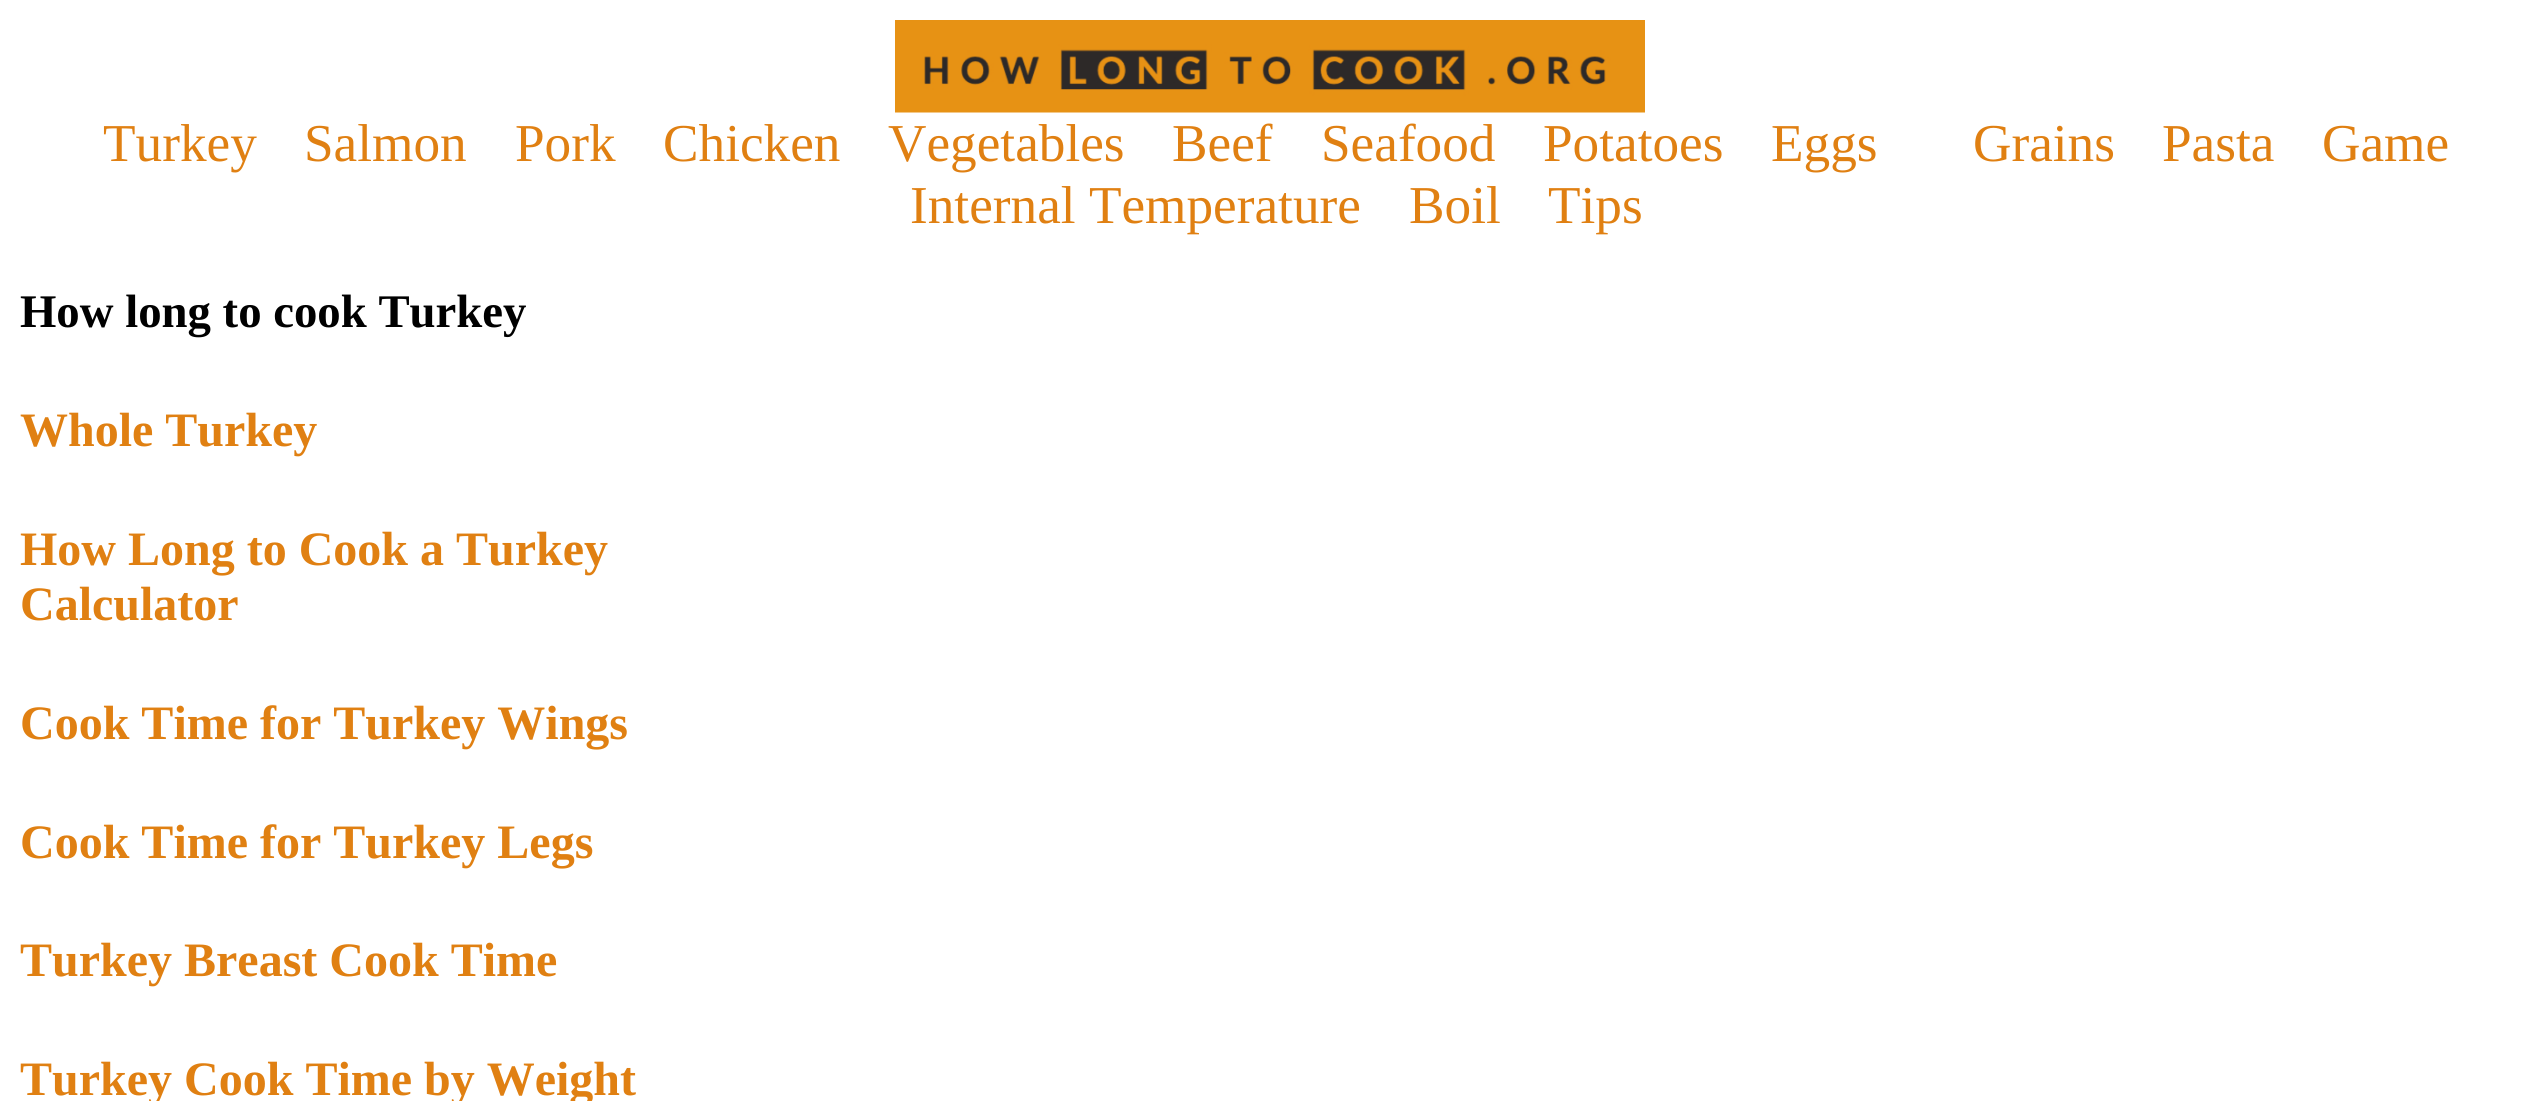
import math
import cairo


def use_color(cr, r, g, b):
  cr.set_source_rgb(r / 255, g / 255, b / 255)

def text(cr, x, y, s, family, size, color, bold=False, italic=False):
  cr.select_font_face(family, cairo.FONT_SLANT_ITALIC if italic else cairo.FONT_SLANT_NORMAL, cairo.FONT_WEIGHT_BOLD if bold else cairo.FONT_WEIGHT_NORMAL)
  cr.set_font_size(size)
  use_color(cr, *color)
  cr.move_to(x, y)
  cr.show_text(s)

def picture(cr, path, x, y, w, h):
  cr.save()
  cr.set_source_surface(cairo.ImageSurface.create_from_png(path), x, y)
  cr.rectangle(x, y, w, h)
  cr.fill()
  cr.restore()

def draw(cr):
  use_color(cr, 255, 255, 255)
  cr.paint()
  picture(cr, "img_01.png", 895, 20, 750, 93)
  text(cr, 103, 161, "Turkey", "Liberation Serif", 53.25, (224, 128, 18))
  text(cr, 304, 161, "Salmon", "Liberation Serif", 53.25, (224, 128, 18))
  text(cr, 515, 161, "Pork", "Liberation Serif", 53.25, (224, 128, 18))
  text(cr, 663, 161, "Chicken", "Liberation Serif", 53.25, (224, 128, 18))
  text(cr, 888, 161, "Vegetables", "Liberation Serif", 53.25, (224, 128, 18))
  text(cr, 1172, 161, "Beef", "Liberation Serif", 53.25, (224, 128, 18))
  text(cr, 1321, 161, "Seafood", "Liberation Serif", 53.25, (224, 128, 18))
  text(cr, 1543, 161, "Potatoes", "Liberation Serif", 53.25, (224, 128, 18))
  text(cr, 1771, 161, "Eggs", "Liberation Serif", 53.25, (224, 128, 18))
  text(cr, 1973, 161, "Grains", "Liberation Serif", 53.25, (224, 128, 18))
  text(cr, 2162, 161, "Pasta", "Liberation Serif", 53.25, (224, 128, 18))
  text(cr, 2322, 161, "Game", "Liberation Serif", 53.25, (224, 128, 18))
  text(cr, 910, 223, "Internal Temperature", "Liberation Serif", 53.25, (224, 128, 18))
  text(cr, 1409, 223, "Boil", "Liberation Serif", 53.25, (224, 128, 18))
  text(cr, 1548, 223, "Tips", "Liberation Serif", 53.25, (224, 128, 18))
  text(cr, 20, 327, "How long to cook Turkey", "Liberation Serif", 46.75, (0, 0, 0), bold=True)
  text(cr, 20, 446, "Whole Turkey", "Liberation Serif", 48, (224, 128, 18), bold=True)
  text(cr, 20, 565, "How Long to Cook a Turkey", "Liberation Serif", 48, (224, 128, 18), bold=True)
  text(cr, 20, 620, "Calculator", "Liberation Serif", 48, (224, 128, 18), bold=True)
  text(cr, 20, 739, "Cook Time for Turkey Wings", "Liberation Serif", 48, (224, 128, 18), bold=True)
  text(cr, 20, 858, "Cook Time for Turkey Legs", "Liberation Serif", 48, (224, 128, 18), bold=True)
  text(cr, 20, 976, "Turkey Breast Cook Time", "Liberation Serif", 48, (224, 128, 18), bold=True)
  text(cr, 20, 1095, "Turkey Cook Time by Weight", "Liberation Serif", 48, (224, 128, 18), bold=True)


surface = cairo.ImageSurface(cairo.FORMAT_RGB24, 2538, 1101)
cr = cairo.Context(surface)
options = cairo.FontOptions()
options.set_hint_metrics(cairo.HINT_METRICS_OFF)
options.set_hint_style(cairo.HINT_STYLE_NONE)
cr.set_font_options(options)
cr.set_miter_limit(4)
draw(cr)
surface.write_to_png("out.png")
